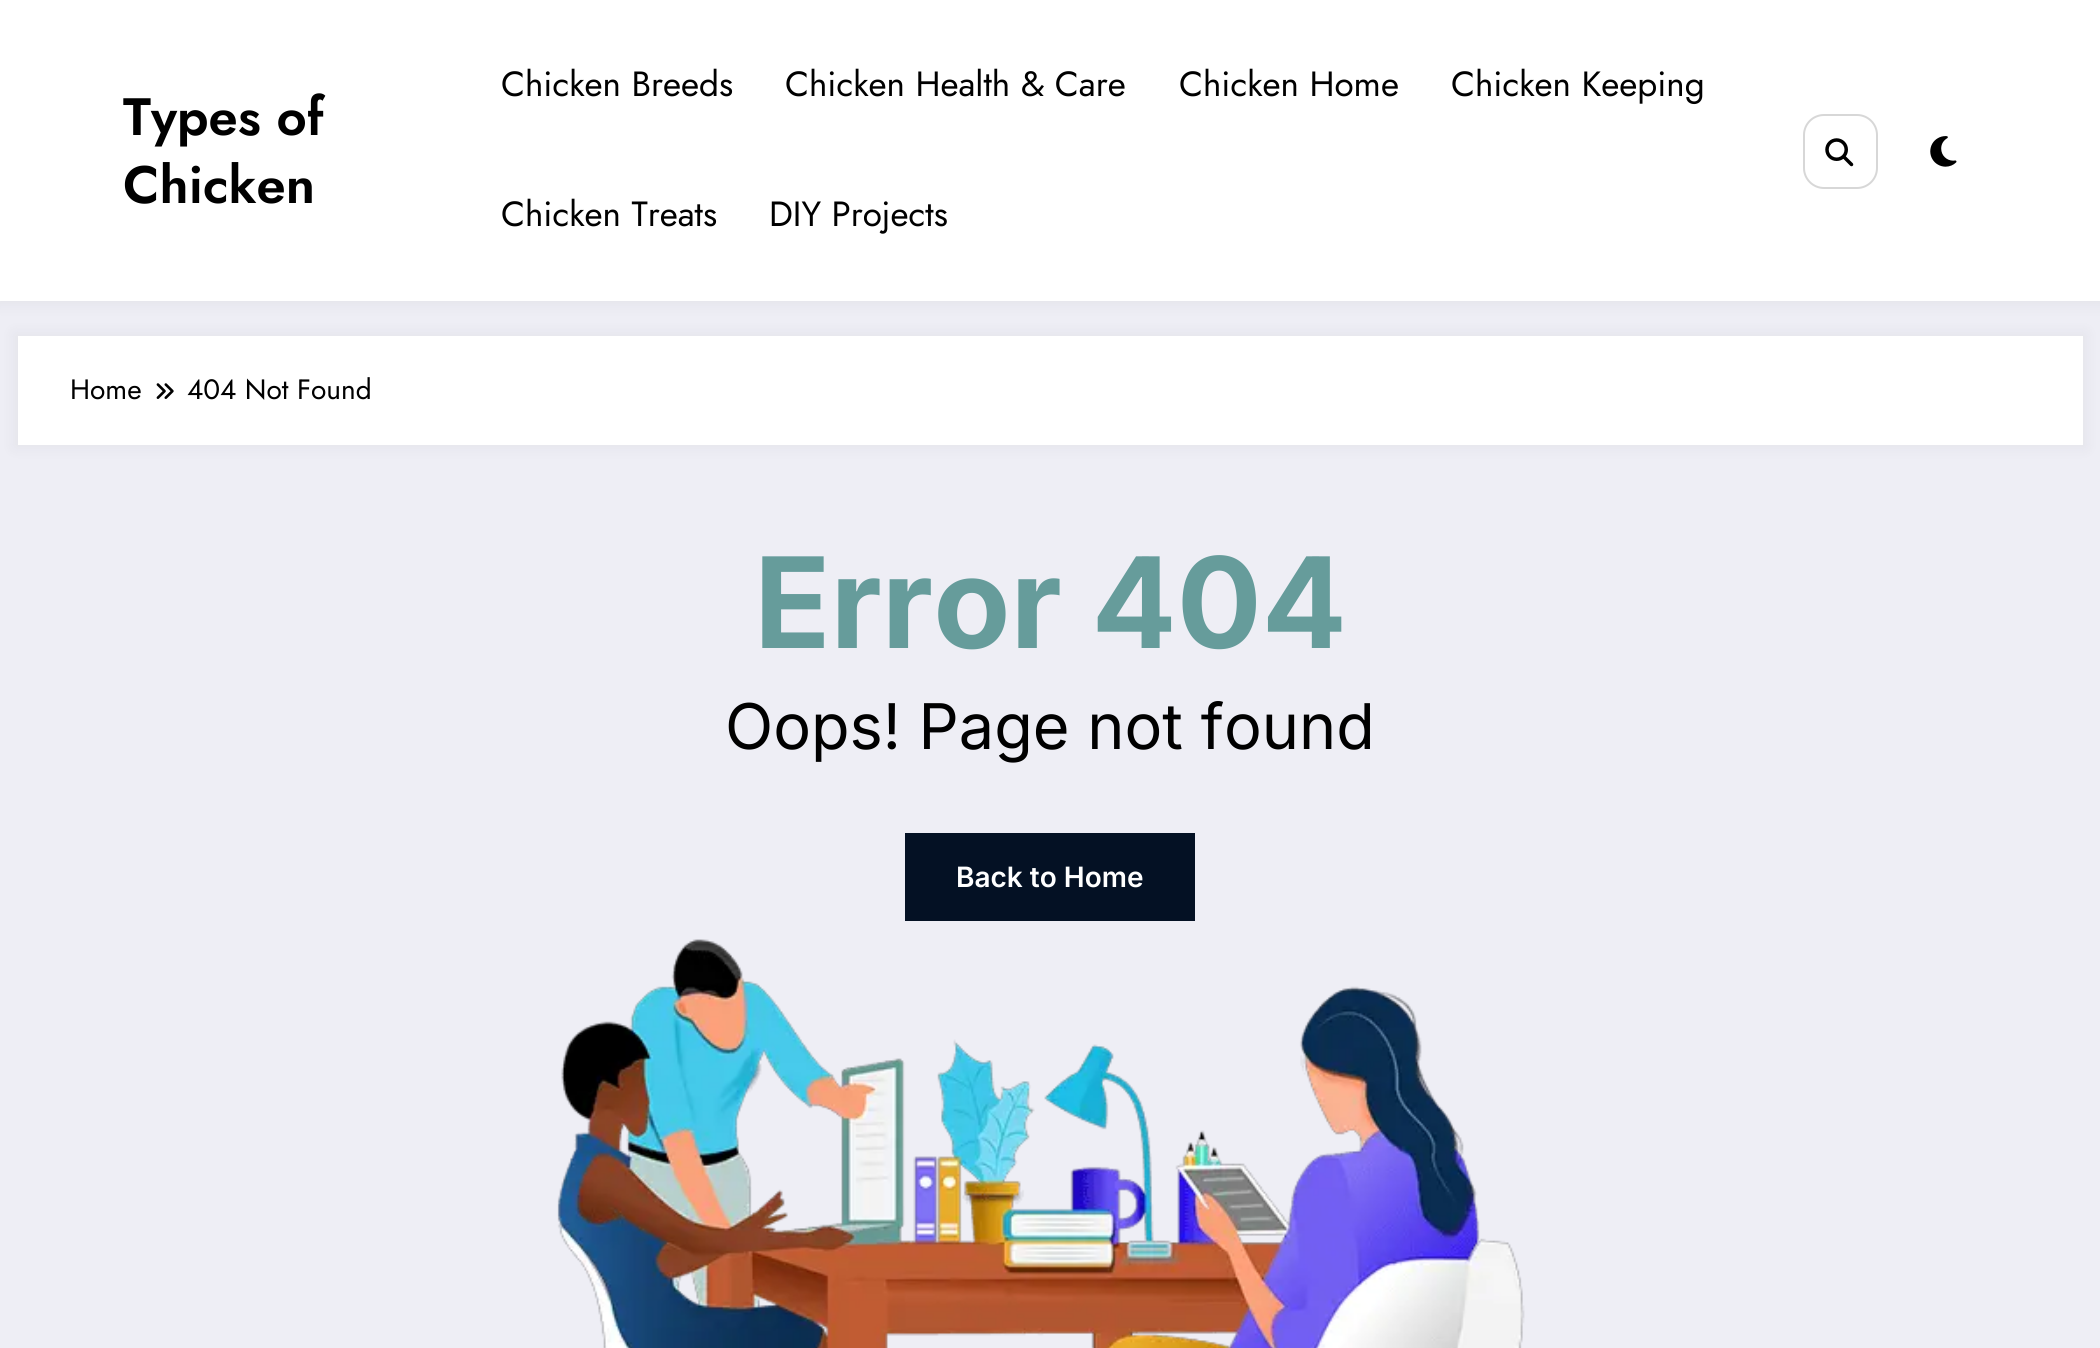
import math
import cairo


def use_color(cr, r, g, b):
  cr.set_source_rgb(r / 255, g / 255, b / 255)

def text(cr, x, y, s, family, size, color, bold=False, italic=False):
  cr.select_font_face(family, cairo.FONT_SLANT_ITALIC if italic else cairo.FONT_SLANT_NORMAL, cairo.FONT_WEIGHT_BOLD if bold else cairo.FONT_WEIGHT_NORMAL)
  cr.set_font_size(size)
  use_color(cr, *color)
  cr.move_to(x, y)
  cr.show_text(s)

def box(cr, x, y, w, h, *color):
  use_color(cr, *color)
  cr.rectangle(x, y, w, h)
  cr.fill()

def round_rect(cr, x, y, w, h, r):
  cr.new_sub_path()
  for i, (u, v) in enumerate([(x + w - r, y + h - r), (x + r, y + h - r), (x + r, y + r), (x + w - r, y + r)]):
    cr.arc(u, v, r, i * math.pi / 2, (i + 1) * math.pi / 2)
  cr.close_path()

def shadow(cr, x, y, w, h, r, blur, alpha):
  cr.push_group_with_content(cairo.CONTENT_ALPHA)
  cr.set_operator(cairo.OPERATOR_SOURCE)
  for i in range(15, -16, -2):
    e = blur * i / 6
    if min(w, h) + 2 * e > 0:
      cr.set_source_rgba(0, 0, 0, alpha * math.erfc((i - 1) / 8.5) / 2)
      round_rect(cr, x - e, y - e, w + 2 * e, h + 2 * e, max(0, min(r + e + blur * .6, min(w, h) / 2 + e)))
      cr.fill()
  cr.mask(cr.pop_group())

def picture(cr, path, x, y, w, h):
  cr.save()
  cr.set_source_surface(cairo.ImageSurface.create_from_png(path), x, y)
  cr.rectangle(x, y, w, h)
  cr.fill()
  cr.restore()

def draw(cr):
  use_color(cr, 238, 238, 245)
  cr.paint()
  use_color(cr, 23, 23, 35)
  shadow(cr, -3, -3, 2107, 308, 0, 7, 0.05)
  box(cr, 0, 0, 2100, 301, 255, 255, 255)
  round_rect(cr, 1804, 115, 73, 73, 20)
  use_color(cr, 215, 215, 215)
  cr.stroke()
  picture(cr, "img_01.png", 1825, 138, 29, 29)
  picture(cr, "img_02.png", 1930, 136, 27, 31)
  use_color(cr, 23, 23, 35)
  shadow(cr, 14, 333, 2072, 115, 0, 7, 0.05)
  box(cr, 18, 336, 2065, 109, 255, 255, 255)
  picture(cr, "img_03.png", 156, 383, 18, 16)
  box(cr, 905, 833, 290, 88, 4, 17, 36)
  picture(cr, "img_04.png", 557, 939, 968, 409)
  text(cr, 123, 135, "Types of", "Jost SemiBold", 52.5, (0, 0, 0))
  text(cr, 123, 203, "Chicken", "Jost SemiBold", 52.5, (0, 0, 0))
  text(cr, 501, 96, "Chicken Breeds", "Jost", 35, (0, 0, 0))
  text(cr, 785, 96, "Chicken Health & Care", "Jost", 35, (0, 0, 0))
  text(cr, 1179, 96, "Chicken Home", "Jost", 35, (0, 0, 0))
  text(cr, 1451, 96, "Chicken Keeping", "Jost", 35, (0, 0, 0))
  text(cr, 501, 226, "Chicken Treats", "Jost", 35, (0, 0, 0))
  text(cr, 769, 226, "DIY Projects", "Jost", 35, (0, 0, 0))
  text(cr, 70, 399, "Home", "Jost", 28, (0, 0, 0))
  text(cr, 187, 399, "404 Not Found", "Jost", 28, (0, 0, 0))
  text(cr, 754, 648, "Error 404", "Inter", 126, (102, 156, 155), bold=True)
  text(cr, 725, 749, "Oops! Page not found", "Inter", 63, (0, 0, 0))
  text(cr, 956, 887, "Back to Home", "Inter SemiBold", 28, (255, 255, 255))


surface = cairo.ImageSurface(cairo.FORMAT_RGB24, 2100, 1348)
cr = cairo.Context(surface)
options = cairo.FontOptions()
options.set_hint_metrics(cairo.HINT_METRICS_OFF)
options.set_hint_style(cairo.HINT_STYLE_NONE)
cr.set_font_options(options)
cr.set_miter_limit(4)
draw(cr)
surface.write_to_png("out.png")
